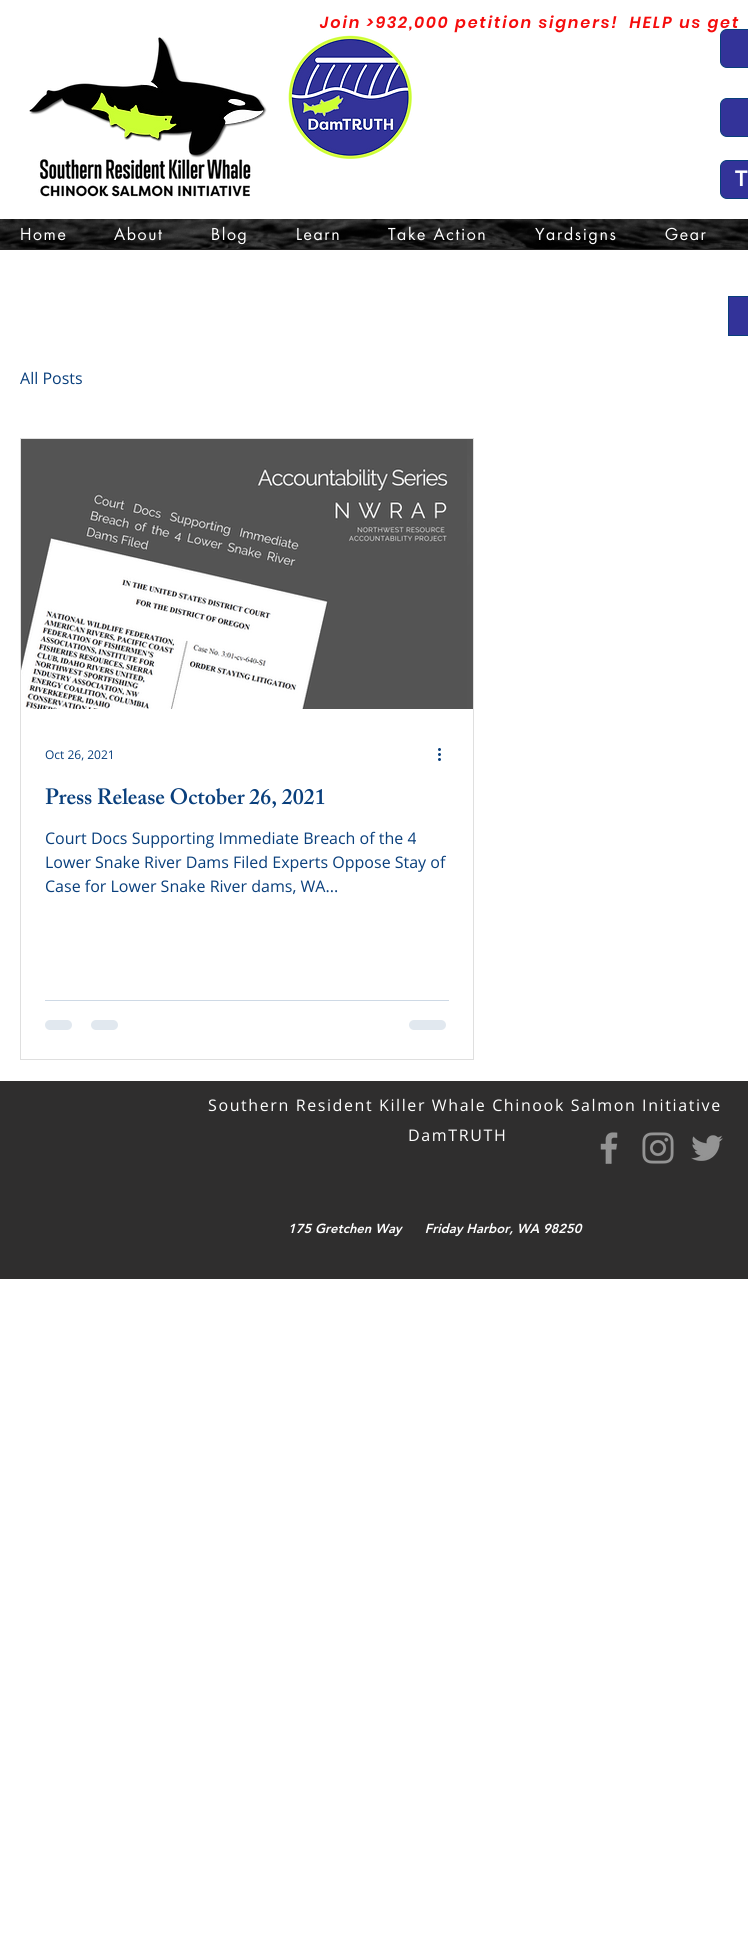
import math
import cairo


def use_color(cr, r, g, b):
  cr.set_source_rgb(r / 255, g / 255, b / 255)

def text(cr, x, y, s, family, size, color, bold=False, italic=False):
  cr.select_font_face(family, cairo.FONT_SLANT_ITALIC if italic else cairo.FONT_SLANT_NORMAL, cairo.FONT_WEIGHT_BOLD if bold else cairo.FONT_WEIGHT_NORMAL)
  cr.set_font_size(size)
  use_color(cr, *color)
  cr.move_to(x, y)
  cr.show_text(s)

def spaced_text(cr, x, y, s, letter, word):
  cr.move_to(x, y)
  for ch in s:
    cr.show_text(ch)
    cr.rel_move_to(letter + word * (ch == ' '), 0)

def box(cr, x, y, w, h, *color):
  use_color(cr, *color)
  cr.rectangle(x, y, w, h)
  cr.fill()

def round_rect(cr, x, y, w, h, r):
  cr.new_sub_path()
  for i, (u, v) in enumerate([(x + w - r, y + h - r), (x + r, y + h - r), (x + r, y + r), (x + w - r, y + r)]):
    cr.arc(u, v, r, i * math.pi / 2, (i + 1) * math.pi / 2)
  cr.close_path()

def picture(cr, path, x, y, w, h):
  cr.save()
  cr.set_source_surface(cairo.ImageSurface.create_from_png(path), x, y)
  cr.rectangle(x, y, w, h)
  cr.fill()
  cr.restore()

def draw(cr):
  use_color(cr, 255, 255, 255)
  cr.paint()
  picture(cr, "img_01.png", 29, 37, 238, 160)
  picture(cr, "img_02.png", 288, 35, 124, 124)
  use_color(cr, 51, 51, 153)
  round_rect(cr, 720.5, 29.5, 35, 38, 6.5)
  cr.fill_preserve()
  use_color(cr, 9, 63, 124)
  cr.set_line_width(1)
  cr.stroke()
  use_color(cr, 51, 51, 153)
  round_rect(cr, 720.5, 98.5, 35, 38, 6.5)
  cr.fill_preserve()
  use_color(cr, 9, 63, 124)
  cr.stroke()
  use_color(cr, 51, 51, 153)
  round_rect(cr, 720.5, 160.5, 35, 38, 6.5)
  cr.fill_preserve()
  use_color(cr, 9, 63, 124)
  cr.stroke()
  picture(cr, "img_03.png", 0, 219, 748, 30)
  box(cr, 0, 249, 748, 1, 36, 35, 35)
  use_color(cr, 51, 51, 153)
  cr.rectangle(728.5, 296.5, 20, 39)
  cr.fill_preserve()
  use_color(cr, 9, 63, 124)
  cr.stroke()
  cr.rectangle(20.5, 438.5, 453, 621)
  use_color(cr, 223, 223, 223)
  cr.stroke()
  picture(cr, "img_04.png", 21, 439, 446, 270)
  picture(cr, "img_05.png", 467, 439, 6, 270)
  picture(cr, "img_06.png", 438, 748, 3, 13)
  box(cr, 45, 1000, 404, 1, 206, 217, 229)
  use_color(cr, 225, 232, 239)
  round_rect(cr, 45, 1020, 27, 10, 5)
  cr.fill()
  round_rect(cr, 91, 1020, 27, 10, 5)
  cr.fill()
  round_rect(cr, 409, 1020, 37, 10, 5)
  cr.fill()
  box(cr, 0, 1081, 748, 198, 47, 46, 46)
  picture(cr, "img_07.png", 600, 1132, 18, 32)
  picture(cr, "img_08.png", 642, 1132, 32, 32)
  picture(cr, "img_09.png", 691, 1135, 32, 26)
  cr.select_font_face("Poppins SemiBold", cairo.FONT_SLANT_ITALIC)
  cr.set_font_size(16)
  use_color(cr, 245, 12, 12)
  spaced_text(cr, 320, 28, "Join >932,000 petition signers!  HELP us get", 1.9, 0)
  text(cr, 735, 186, "T", "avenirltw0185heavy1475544 Black", 22, (255, 255, 255))
  cr.select_font_face("futura")
  cr.set_font_size(16)
  spaced_text(cr, 20, 240, "Home", 1.6, 0)
  spaced_text(cr, 114, 240, "About", 1.6, 0)
  spaced_text(cr, 211, 240, "Blog", 1.6, 0)
  spaced_text(cr, 296, 240, "Learn", 1.6, 0)
  spaced_text(cr, 388, 240, "Take Action", 1.6, 0)
  spaced_text(cr, 535, 240, "Yardsigns", 1.6, 0)
  spaced_text(cr, 665, 240, "Gear", 1.6, 0)
  text(cr, 20, 384, "All Posts", "Open Sans", 16, (9, 63, 124))
  text(cr, 45, 759, "Oct 26, 2021", "Open Sans", 12, (9, 63, 124))
  text(cr, 45, 804, "Press Release October 26, 2021", "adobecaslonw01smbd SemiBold", 22, (9, 63, 124))
  text(cr, 45, 844, "Court Docs Supporting Immediate Breach of the 4", "Open Sans", 16, (9, 63, 124))
  text(cr, 45, 868, "Lower Snake River Dams Filed Experts Oppose Stay of", "Open Sans", 16, (9, 63, 124))
  text(cr, 45, 892, "Case for Lower Snake River dams, WA...", "Open Sans", 16, (9, 63, 124))
  use_color(cr, 255, 255, 255)
  spaced_text(cr, 208, 1111, "Southern Resident Killer Whale Chinook Salmon Initiative", 1.6, 0)
  spaced_text(cr, 408, 1141, "DamTRUTH", 1.6, 0)
  text(cr, 288, 1233, "175 Gretchen Way      Friday Harbor, WA 98250", "avenirltw0185heavy1475544 Black", 13, (255, 255, 255), italic=True)


surface = cairo.ImageSurface(cairo.FORMAT_RGB24, 748, 1944)
cr = cairo.Context(surface)
options = cairo.FontOptions()
options.set_hint_metrics(cairo.HINT_METRICS_OFF)
options.set_hint_style(cairo.HINT_STYLE_NONE)
cr.set_font_options(options)
cr.set_miter_limit(4)
draw(cr)
surface.write_to_png("out.png")
